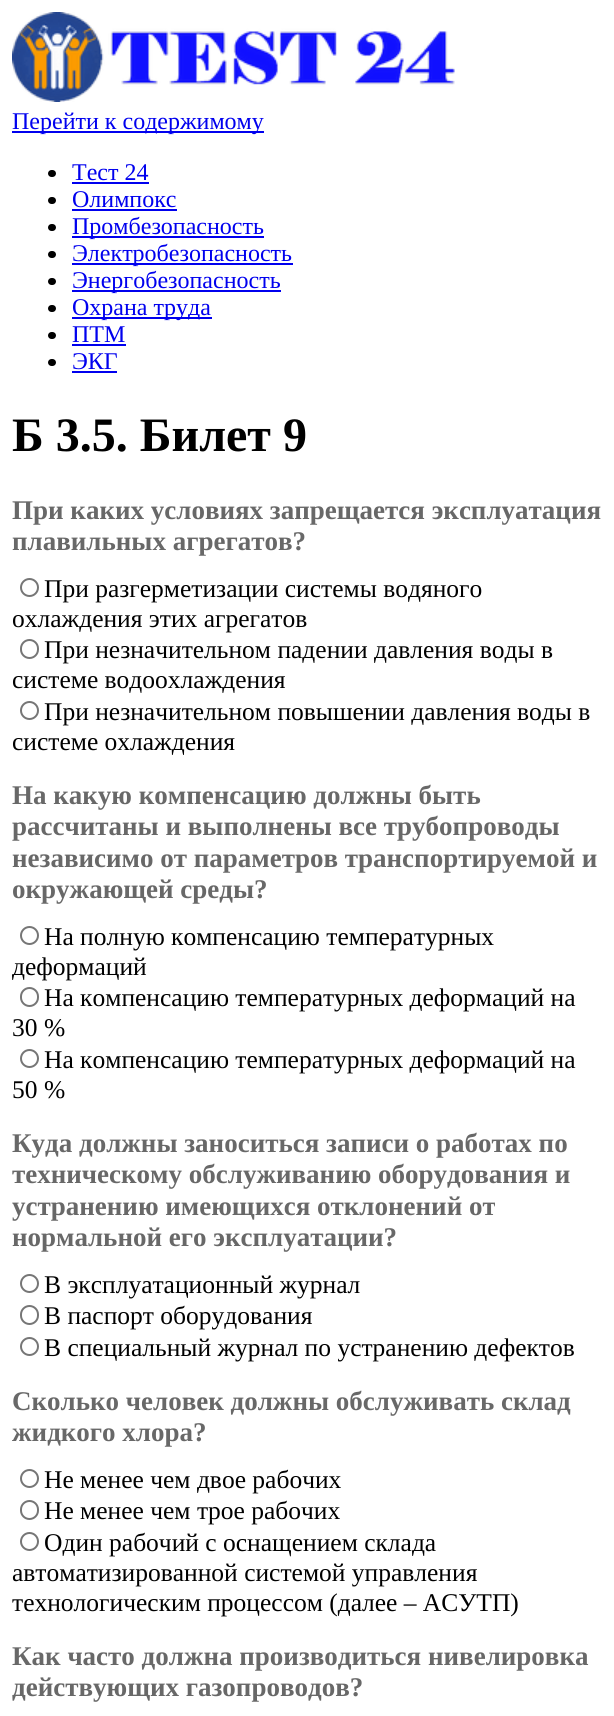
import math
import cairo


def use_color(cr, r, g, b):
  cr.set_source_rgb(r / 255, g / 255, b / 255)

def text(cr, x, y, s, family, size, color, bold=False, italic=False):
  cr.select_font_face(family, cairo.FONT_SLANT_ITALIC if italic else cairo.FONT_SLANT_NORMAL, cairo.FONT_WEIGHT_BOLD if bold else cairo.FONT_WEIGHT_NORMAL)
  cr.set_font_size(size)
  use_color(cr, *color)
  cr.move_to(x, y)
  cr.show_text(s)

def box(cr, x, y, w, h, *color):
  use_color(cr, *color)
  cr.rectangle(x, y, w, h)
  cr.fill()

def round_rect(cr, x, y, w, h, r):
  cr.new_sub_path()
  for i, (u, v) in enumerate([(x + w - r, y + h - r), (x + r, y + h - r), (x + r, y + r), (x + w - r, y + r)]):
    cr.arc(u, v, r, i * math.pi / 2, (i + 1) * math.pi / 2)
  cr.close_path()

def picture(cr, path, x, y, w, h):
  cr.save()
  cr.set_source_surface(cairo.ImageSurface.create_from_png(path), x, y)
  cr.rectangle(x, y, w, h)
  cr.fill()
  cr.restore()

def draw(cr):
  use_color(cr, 255, 255, 255)
  cr.paint()
  picture(cr, "img_01.png", 12, 12, 443, 90)
  box(cr, 12, 131, 252, 2, 0, 0, 238)
  use_color(cr, 0, 0, 0)
  round_rect(cr, 48, 170, 8, 7, 3.5)
  cr.fill()
  box(cr, 72, 182, 77, 2, 0, 0, 238)
  use_color(cr, 0, 0, 0)
  round_rect(cr, 48, 197, 8, 7, 3.5)
  cr.fill()
  box(cr, 72, 209, 105, 2, 0, 0, 238)
  use_color(cr, 0, 0, 0)
  round_rect(cr, 48, 224, 8, 7, 3.5)
  cr.fill()
  box(cr, 72, 236, 192, 2, 0, 0, 238)
  use_color(cr, 0, 0, 0)
  round_rect(cr, 48, 251, 8, 7, 3.5)
  cr.fill()
  box(cr, 72, 263, 221, 2, 0, 0, 238)
  use_color(cr, 0, 0, 0)
  round_rect(cr, 48, 278, 8, 7, 3.5)
  cr.fill()
  box(cr, 72, 290, 209, 2, 0, 0, 238)
  use_color(cr, 0, 0, 0)
  round_rect(cr, 48, 305, 8, 7, 3.5)
  cr.fill()
  box(cr, 72, 317, 140, 2, 0, 0, 238)
  use_color(cr, 0, 0, 0)
  round_rect(cr, 48, 332, 8, 7, 3.5)
  cr.fill()
  box(cr, 72, 344, 54, 2, 0, 0, 238)
  use_color(cr, 0, 0, 0)
  round_rect(cr, 48, 359, 8, 7, 3.5)
  cr.fill()
  box(cr, 72, 371, 45, 2, 0, 0, 238)
  cr.arc(29.5, 587.5, 8.5, 0, 2 * math.pi)
  use_color(cr, 118, 118, 118)
  cr.stroke()
  round_rect(cr, 21, 640, 17, 18, 8.5)
  cr.stroke()
  cr.arc(29.5, 710.5, 8.5, 0, 2 * math.pi)
  cr.stroke()
  cr.arc(29.5, 935.5, 8.5, 0, 2 * math.pi)
  cr.stroke()
  round_rect(cr, 21, 988, 17, 18, 8.5)
  cr.stroke()
  cr.arc(29.5, 1058.5, 8.5, 0, 2 * math.pi)
  cr.stroke()
  cr.arc(29.5, 1283.5, 8.5, 0, 2 * math.pi)
  cr.stroke()
  round_rect(cr, 21, 1306, 17, 18, 8.5)
  cr.stroke()
  cr.arc(29.5, 1346.5, 8.5, 0, 2 * math.pi)
  cr.stroke()
  cr.arc(29.5, 1478.5, 8.5, 0, 2 * math.pi)
  cr.stroke()
  round_rect(cr, 21, 1501, 17, 18, 8.5)
  cr.stroke()
  cr.arc(29.5, 1541.5, 8.5, 0, 2 * math.pi)
  cr.stroke()
  text(cr, 12, 129, "Перейти к содержимому", "Liberation Serif", 24, (0, 0, 238))
  text(cr, 72, 180, "Тест 24", "Liberation Serif", 24, (0, 0, 238))
  text(cr, 72, 207, "Олимпокс", "Liberation Serif", 24, (0, 0, 238))
  text(cr, 72, 234, "Промбезопасность", "Liberation Serif", 24, (0, 0, 238))
  text(cr, 72, 261, "Электробезопасность", "Liberation Serif", 24, (0, 0, 238))
  text(cr, 72, 288, "Энергобезопасность", "Liberation Serif", 24, (0, 0, 238))
  text(cr, 72, 315, "Охрана труда", "Liberation Serif", 24, (0, 0, 238))
  text(cr, 72, 342, "ПТМ", "Liberation Serif", 24, (0, 0, 238))
  text(cr, 72, 369, "ЭКГ", "Liberation Serif", 24, (0, 0, 238))
  text(cr, 12, 451, "Б 3.5. Билет 9", "Liberation Serif", 48, (0, 0, 0), bold=True)
  text(cr, 12, 519, "При каких условиях запрещается эксплуатация", "Liberation Serif", 27, (104, 104, 104), bold=True)
  text(cr, 12, 550, "плавильных агрегатов?", "Liberation Serif", 27, (104, 104, 104), bold=True)
  text(cr, 44, 597, "При разгерметизации системы водяного", "Liberation Serif", 25.5, (0, 0, 0))
  text(cr, 12, 627, "охлаждения этих агрегатов", "Liberation Serif", 25.5, (0, 0, 0))
  text(cr, 44, 658, "При незначительном падении давления воды в", "Liberation Serif", 25.5, (0, 0, 0))
  text(cr, 12, 688, "системе водоохлаждения", "Liberation Serif", 25.5, (0, 0, 0))
  text(cr, 44, 720, "При незначительном повышении давления воды в", "Liberation Serif", 25.5, (0, 0, 0))
  text(cr, 12, 750, "системе охлаждения", "Liberation Serif", 25.5, (0, 0, 0))
  text(cr, 12, 804, "На какую компенсацию должны быть", "Liberation Serif", 27, (104, 104, 104), bold=True)
  text(cr, 12, 835, "рассчитаны и выполнены все трубопроводы", "Liberation Serif", 27, (104, 104, 104), bold=True)
  text(cr, 12, 867, "независимо от параметров транспортируемой и", "Liberation Serif", 27, (104, 104, 104), bold=True)
  text(cr, 12, 898, "окружающей среды?", "Liberation Serif", 27, (104, 104, 104), bold=True)
  text(cr, 44, 945, "На полную компенсацию температурных", "Liberation Serif", 25.5, (0, 0, 0))
  text(cr, 12, 975, "деформаций", "Liberation Serif", 25.5, (0, 0, 0))
  text(cr, 44, 1006, "На компенсацию температурных деформаций на", "Liberation Serif", 25.5, (0, 0, 0))
  text(cr, 12, 1036, "30 %", "Liberation Serif", 25.5, (0, 0, 0))
  text(cr, 44, 1068, "На компенсацию температурных деформаций на", "Liberation Serif", 25.5, (0, 0, 0))
  text(cr, 12, 1098, "50 %", "Liberation Serif", 25.5, (0, 0, 0))
  text(cr, 12, 1152, "Куда должны заноситься записи о работах по", "Liberation Serif", 27, (104, 104, 104), bold=True)
  text(cr, 12, 1183, "техническому обслуживанию оборудования и", "Liberation Serif", 27, (104, 104, 104), bold=True)
  text(cr, 12, 1215, "устранению имеющихся отклонений от", "Liberation Serif", 27, (104, 104, 104), bold=True)
  text(cr, 12, 1246, "нормальной его эксплуатации?", "Liberation Serif", 27, (104, 104, 104), bold=True)
  text(cr, 44, 1293, "В эксплуатационный журнал", "Liberation Serif", 25.5, (0, 0, 0))
  text(cr, 44, 1324, "В паспорт оборудования", "Liberation Serif", 25.5, (0, 0, 0))
  text(cr, 44, 1356, "В специальный журнал по устранению дефектов", "Liberation Serif", 25.5, (0, 0, 0))
  text(cr, 12, 1410, "Сколько человек должны обслуживать склад", "Liberation Serif", 27, (104, 104, 104), bold=True)
  text(cr, 12, 1441, "жидкого хлора?", "Liberation Serif", 27, (104, 104, 104), bold=True)
  text(cr, 44, 1488, "Не менее чем двое рабочих", "Liberation Serif", 25.5, (0, 0, 0))
  text(cr, 44, 1519, "Не менее чем трое рабочих", "Liberation Serif", 25.5, (0, 0, 0))
  text(cr, 44, 1551, "Один рабочий с оснащением склада", "Liberation Serif", 25.5, (0, 0, 0))
  text(cr, 12, 1581, "автоматизированной системой управления", "Liberation Serif", 25.5, (0, 0, 0))
  text(cr, 12, 1611, "технологическим процессом (далее – АСУТП)", "Liberation Serif", 25.5, (0, 0, 0))
  text(cr, 12, 1665, "Как часто должна производиться нивелировка", "Liberation Serif", 27, (104, 104, 104), bold=True)
  text(cr, 12, 1696, "действующих газопроводов?", "Liberation Serif", 27, (104, 104, 104), bold=True)


surface = cairo.ImageSurface(cairo.FORMAT_RGB24, 614, 1716)
cr = cairo.Context(surface)
options = cairo.FontOptions()
options.set_hint_metrics(cairo.HINT_METRICS_OFF)
options.set_hint_style(cairo.HINT_STYLE_NONE)
cr.set_font_options(options)
cr.set_miter_limit(4)
draw(cr)
surface.write_to_png("out.png")
